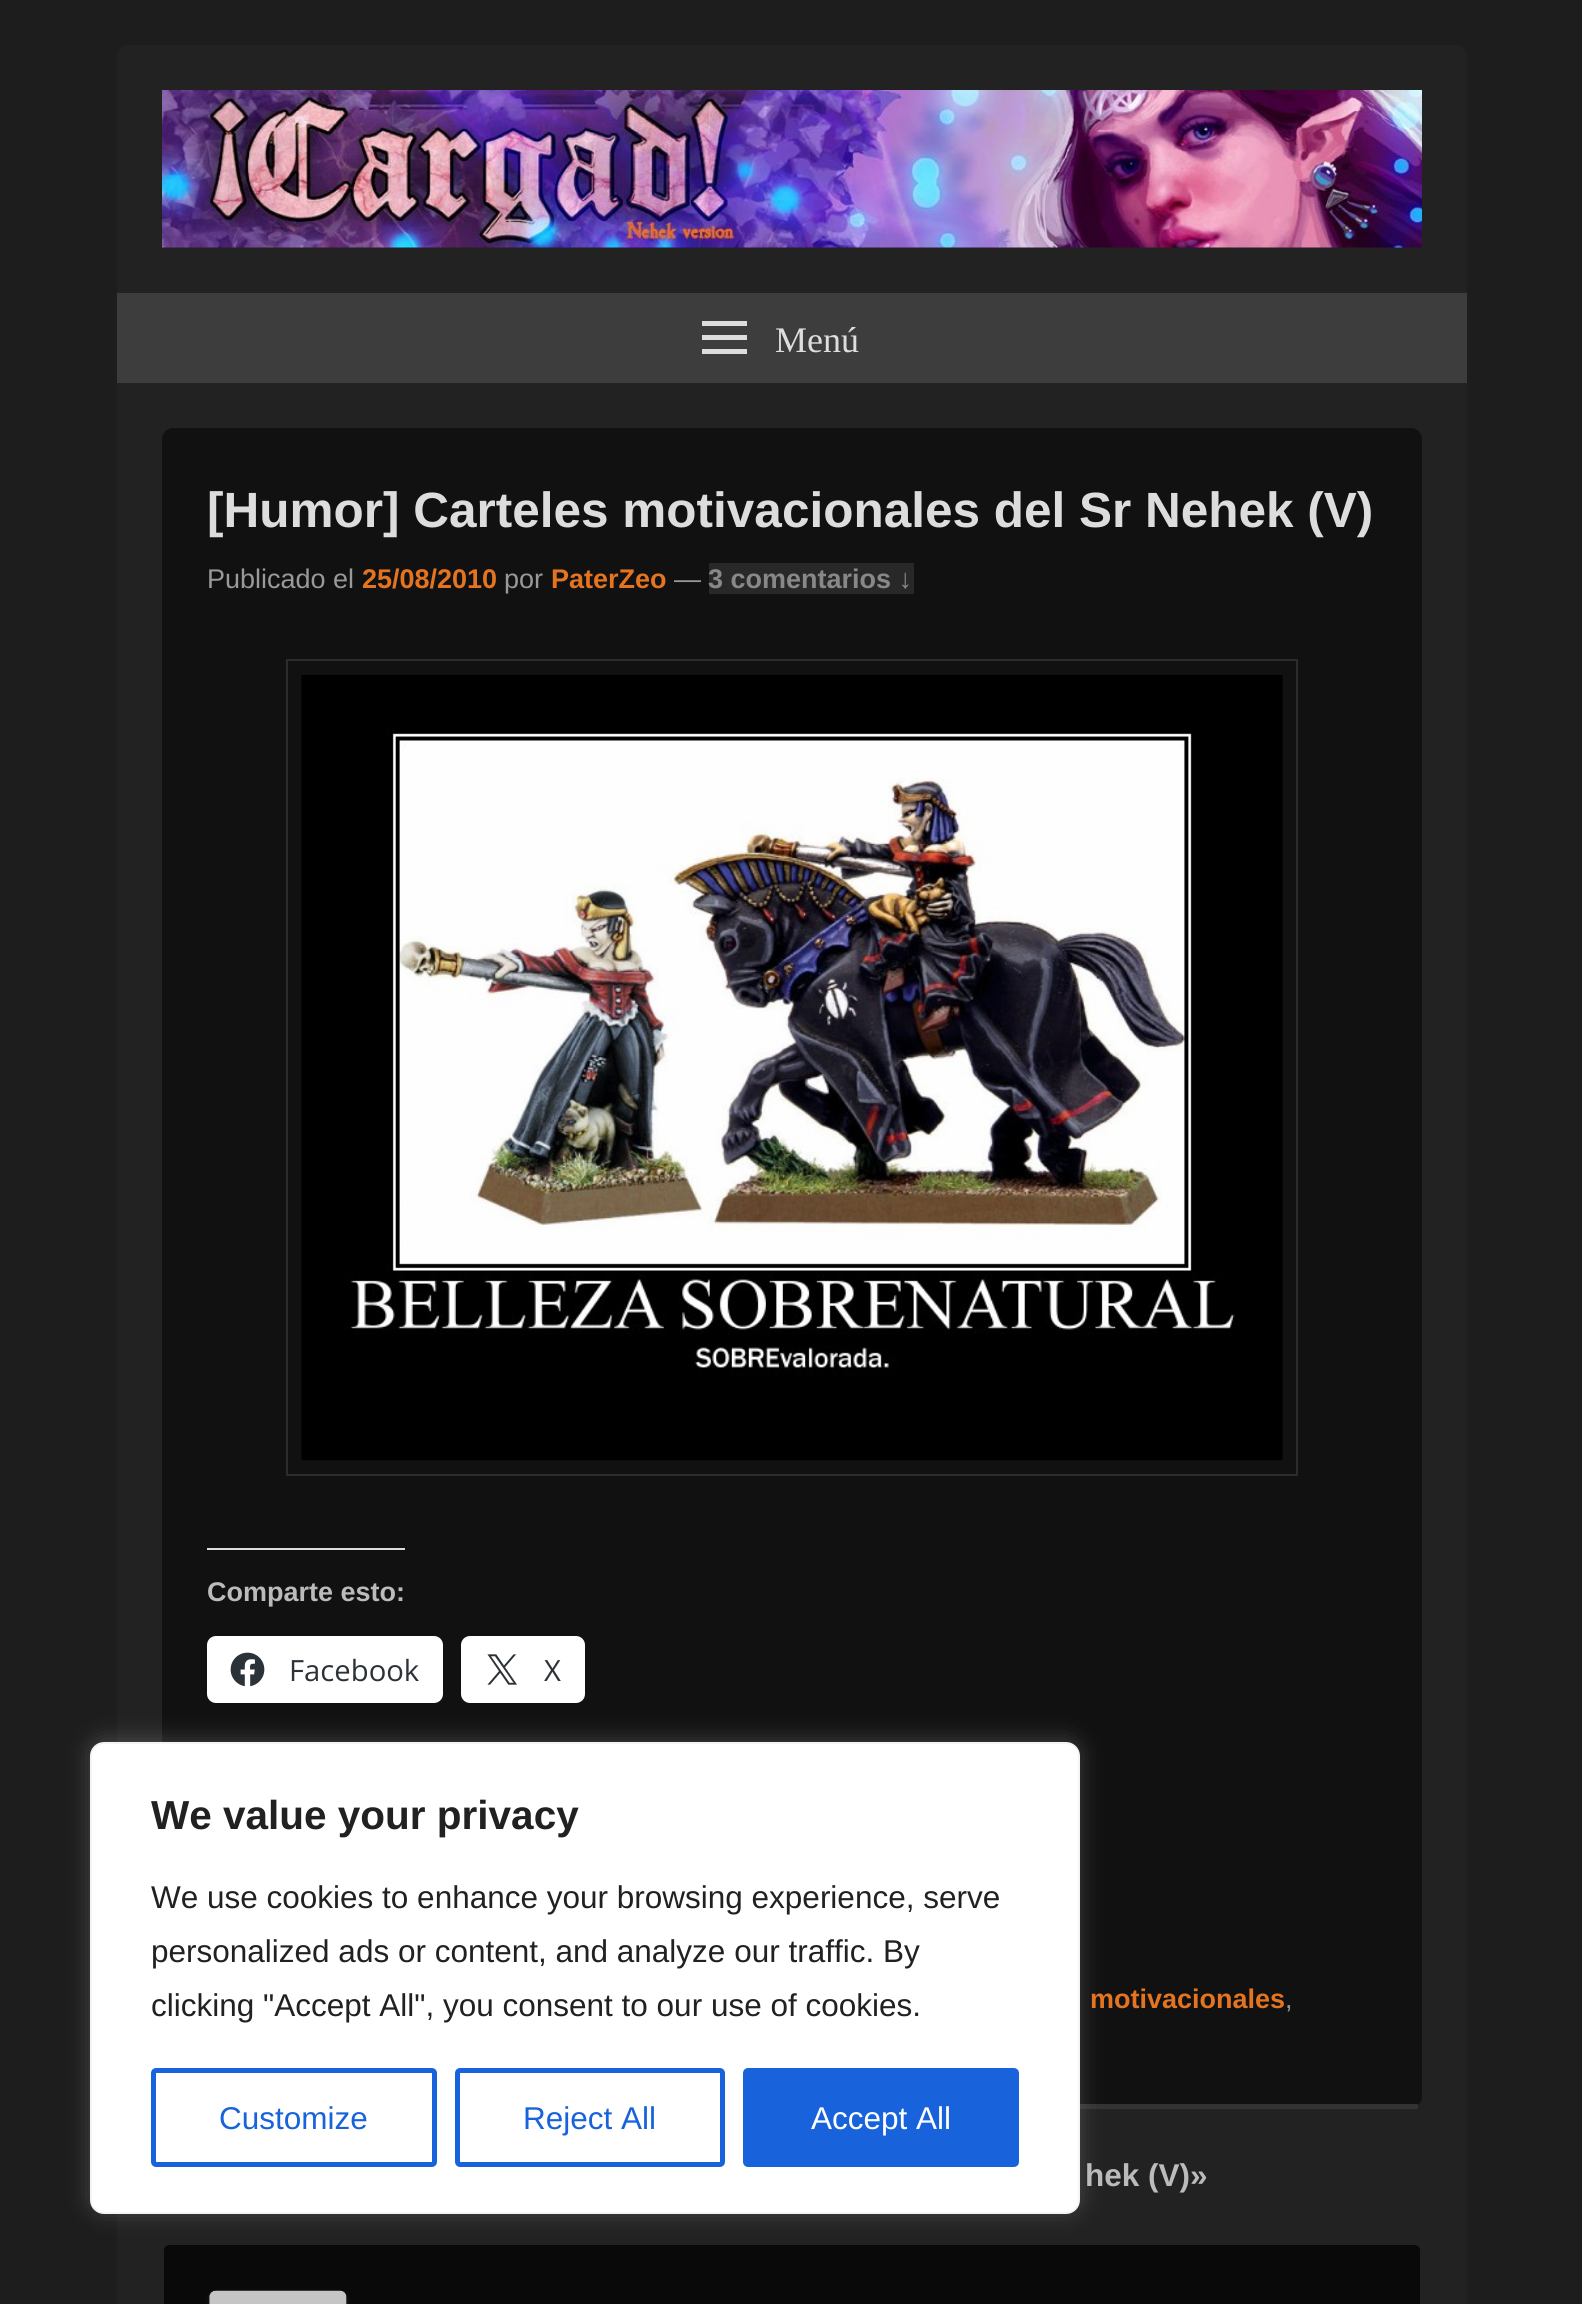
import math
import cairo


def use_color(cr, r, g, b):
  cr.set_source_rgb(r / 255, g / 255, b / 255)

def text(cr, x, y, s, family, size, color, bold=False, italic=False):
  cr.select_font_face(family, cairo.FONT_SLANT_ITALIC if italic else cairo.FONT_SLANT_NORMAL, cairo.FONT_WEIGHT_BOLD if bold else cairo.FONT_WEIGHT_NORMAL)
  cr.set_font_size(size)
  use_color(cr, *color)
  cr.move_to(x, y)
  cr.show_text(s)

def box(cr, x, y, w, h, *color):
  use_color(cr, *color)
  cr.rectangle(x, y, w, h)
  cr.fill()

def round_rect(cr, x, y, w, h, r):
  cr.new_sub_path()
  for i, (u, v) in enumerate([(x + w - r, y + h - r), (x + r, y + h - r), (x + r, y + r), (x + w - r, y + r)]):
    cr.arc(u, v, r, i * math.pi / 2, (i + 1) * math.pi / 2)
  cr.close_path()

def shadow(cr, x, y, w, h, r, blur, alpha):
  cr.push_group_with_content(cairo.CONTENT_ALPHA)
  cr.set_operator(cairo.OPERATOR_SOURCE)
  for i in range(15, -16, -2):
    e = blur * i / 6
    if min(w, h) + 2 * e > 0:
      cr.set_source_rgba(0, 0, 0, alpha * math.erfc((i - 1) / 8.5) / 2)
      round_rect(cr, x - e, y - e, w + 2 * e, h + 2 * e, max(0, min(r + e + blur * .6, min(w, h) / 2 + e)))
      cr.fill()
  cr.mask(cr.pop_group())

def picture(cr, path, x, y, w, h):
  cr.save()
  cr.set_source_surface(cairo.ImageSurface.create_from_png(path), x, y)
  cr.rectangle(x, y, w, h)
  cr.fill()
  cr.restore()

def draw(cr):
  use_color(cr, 29, 29, 29)
  cr.paint()
  use_color(cr, 34, 34, 34)
  cr.new_path()
  cr.move_to(128, 45)
  cr.line_to(1456, 45)
  cr.curve_to(1462, 45, 1467, 50, 1467, 56)
  cr.line_to(1467, 383)
  cr.line_to(117, 383)
  cr.line_to(117, 56)
  cr.curve_to(117, 50, 122, 45, 128, 45)
  cr.close_path()
  cr.fill()
  picture(cr, "img_01.png", 162, 90, 1260, 158)
  box(cr, 117, 293, 1350, 90, 61, 61, 61)
  use_color(cr, 221, 221, 221)
  cr.new_path()
  cr.move_to(702, 354)
  cr.line_to(702, 349)
  cr.line_to(747, 349)
  cr.line_to(747, 354)
  cr.close_path()
  cr.move_to(702, 321)
  cr.line_to(747, 321)
  cr.line_to(747, 326)
  cr.line_to(702, 326)
  cr.close_path()
  cr.move_to(702, 340)
  cr.line_to(702, 335)
  cr.line_to(747, 335)
  cr.line_to(747, 340)
  cr.close_path()
  cr.fill()
  box(cr, 117, 383, 1350, 1921, 34, 34, 34)
  use_color(cr, 17, 17, 17)
  round_rect(cr, 162, 428, 1260, 1680, 11)
  cr.fill()
  box(cr, 1080, 2104, 338, 5, 51, 51, 51)
  box(cr, 709, 563, 205, 31, 40, 40, 40)
  cr.rectangle(287, 660, 1010, 815)
  use_color(cr, 44, 44, 44)
  cr.stroke()
  picture(cr, "img_02.png", 301, 675, 982, 786)
  box(cr, 207, 1548, 198, 2, 220, 220, 222)
  use_color(cr, 255, 255, 255)
  round_rect(cr, 207, 1636, 236, 67, 9)
  cr.fill()
  picture(cr, "img_03.png", 230, 1652, 35, 35)
  round_rect(cr, 461, 1636, 124, 67, 9)
  cr.fill()
  picture(cr, "img_04.png", 487, 1654, 30, 31)
  use_color(cr, 9, 9, 9)
  round_rect(cr, 163, 2244, 1258, 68, 6)
  cr.fill_preserve()
  use_color(cr, 34, 34, 34)
  cr.stroke()
  use_color(cr, 34, 34, 34)
  shadow(cr, 209, 2293, 138, 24, 7, 2, 1)
  picture(cr, "img_05.png", 209, 2290, 138, 14)
  use_color(cr, 172, 171, 171)
  shadow(cr, 90, 1739, 990, 473, 14, 11, 0.3)
  use_color(cr, 255, 255, 255)
  round_rect(cr, 91, 1743, 988, 470, 13)
  cr.fill_preserve()
  use_color(cr, 244, 244, 244)
  cr.stroke()
  round_rect(cr, 153.5, 2070.5, 281, 94, 2.5)
  use_color(cr, 24, 99, 220)
  cr.set_line_width(5)
  cr.stroke()
  round_rect(cr, 457.5, 2070.5, 265, 94, 2.5)
  cr.stroke()
  round_rect(cr, 745.5, 2070.5, 271, 94, 2.5)
  cr.fill_preserve()
  cr.stroke()
  text(cr, 775, 352, "Menú", "Liberation Serif", 36, (221, 221, 221))
  text(cr, 207, 527, "[Humor] Carteles motivacionales del Sr Nehek (V)", "Liberation Sans", 49.5, (221, 221, 221), bold=True)
  text(cr, 207, 588, "Publicado el", "Liberation Sans", 27, (153, 153, 153))
  text(cr, 362, 588, "25/08/2010", "Liberation Sans", 27, (228, 116, 31), bold=True)
  text(cr, 504, 588, "por", "Liberation Sans", 27, (153, 153, 153))
  text(cr, 551, 588, "PaterZeo", "Liberation Sans", 27, (228, 116, 31), bold=True)
  text(cr, 674, 588, "—", "Liberation Sans", 27, (153, 153, 153))
  text(cr, 708, 588, "3 comentarios ↓", "Liberation Sans", 27, (136, 136, 136), bold=True)
  text(cr, 207, 1601, "Comparte esto:", "Liberation Sans", 27, (187, 187, 187), bold=True)
  text(cr, 289, 1681, "Facebook", "Open Sans", 29.25, (44, 51, 56))
  text(cr, 544, 1681, "X", "Open Sans", 29.25, (44, 51, 56))
  text(cr, 1090, 2008, "motivacionales", "Liberation Sans", 27, (228, 116, 31), bold=True)
  text(cr, 1285, 2008, ",", "Liberation Sans", 27, (153, 153, 153))
  text(cr, 1085, 2186, "hek (V)»", "Liberation Sans", 31.5, (187, 187, 187), bold=True)
  text(cr, 151, 1829, "We value your privacy", "Liberation Sans", 40.5, (33, 33, 33), bold=True)
  text(cr, 151, 1908, "We use cookies to enhance your browsing experience, serve", "Liberation Sans", 31.5, (33, 33, 33))
  text(cr, 151, 1962, "personalized ads or content, and analyze our traffic. By", "Liberation Sans", 31.5, (33, 33, 33))
  text(cr, 151, 2016, "clicking \"Accept All\", you consent to our use of cookies.", "Liberation Sans", 31.5, (33, 33, 33))
  text(cr, 219, 2129, "Customize", "Liberation Sans", 31.5, (24, 99, 220))
  text(cr, 523, 2129, "Reject All", "Liberation Sans", 31.5, (24, 99, 220))
  text(cr, 811, 2129, "Accept All", "Liberation Sans", 31.5, (255, 255, 255))


surface = cairo.ImageSurface(cairo.FORMAT_RGB24, 1582, 2304)
cr = cairo.Context(surface)
options = cairo.FontOptions()
options.set_hint_metrics(cairo.HINT_METRICS_OFF)
options.set_hint_style(cairo.HINT_STYLE_NONE)
cr.set_font_options(options)
cr.set_miter_limit(4)
draw(cr)
surface.write_to_png("out.png")
